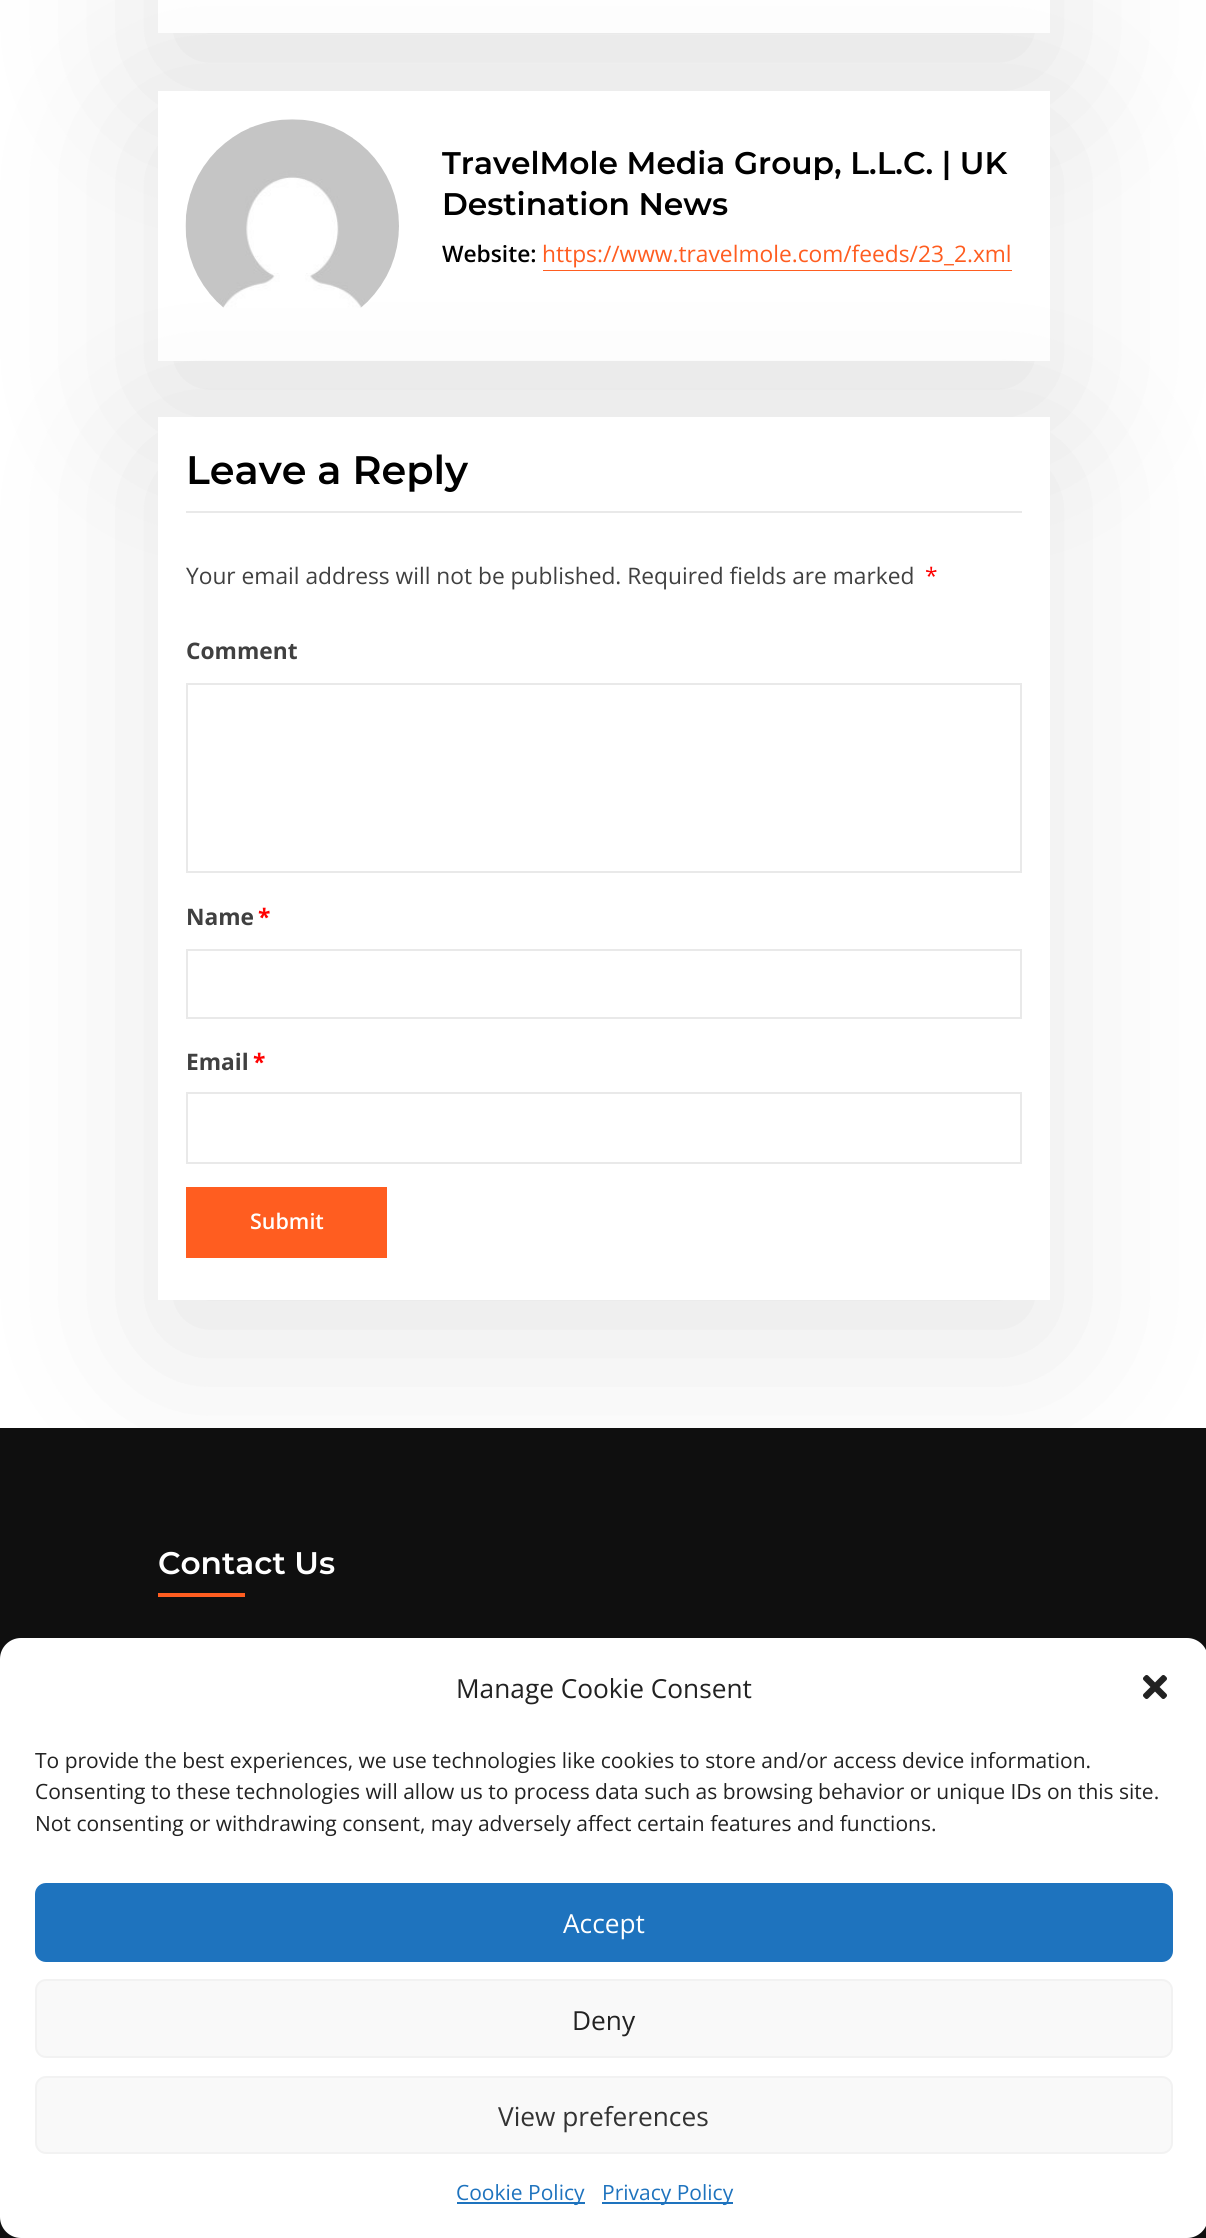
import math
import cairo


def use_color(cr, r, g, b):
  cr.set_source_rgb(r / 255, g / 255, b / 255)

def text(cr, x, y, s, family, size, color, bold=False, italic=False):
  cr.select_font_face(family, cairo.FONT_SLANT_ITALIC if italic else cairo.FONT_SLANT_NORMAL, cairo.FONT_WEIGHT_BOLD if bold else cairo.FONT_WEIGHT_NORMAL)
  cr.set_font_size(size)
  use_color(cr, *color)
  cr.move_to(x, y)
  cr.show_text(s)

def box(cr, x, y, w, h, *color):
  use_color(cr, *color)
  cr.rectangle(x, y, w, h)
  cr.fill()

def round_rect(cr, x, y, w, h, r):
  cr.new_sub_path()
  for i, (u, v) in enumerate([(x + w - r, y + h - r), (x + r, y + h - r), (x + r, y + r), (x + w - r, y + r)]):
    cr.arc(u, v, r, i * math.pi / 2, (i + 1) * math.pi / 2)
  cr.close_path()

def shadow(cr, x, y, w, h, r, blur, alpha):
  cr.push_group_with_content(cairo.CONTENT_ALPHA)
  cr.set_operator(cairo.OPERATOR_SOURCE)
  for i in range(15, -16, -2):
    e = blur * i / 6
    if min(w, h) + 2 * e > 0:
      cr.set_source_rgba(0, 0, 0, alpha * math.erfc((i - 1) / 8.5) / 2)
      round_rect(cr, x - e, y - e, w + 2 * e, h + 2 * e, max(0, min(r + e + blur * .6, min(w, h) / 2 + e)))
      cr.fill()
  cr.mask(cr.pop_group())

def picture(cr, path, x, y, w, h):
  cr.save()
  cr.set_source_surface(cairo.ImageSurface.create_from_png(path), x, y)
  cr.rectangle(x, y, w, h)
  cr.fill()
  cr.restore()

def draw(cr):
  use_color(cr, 255, 255, 255)
  cr.paint()
  cr.save()
  cr.set_fill_rule(cairo.FILL_RULE_EVEN_ODD)
  cr.new_path()
  cr.move_to(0, 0)
  cr.line_to(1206, 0)
  cr.line_to(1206, 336)
  cr.line_to(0, 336)
  cr.close_path()
  cr.move_to(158, -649)
  cr.line_to(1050, -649)
  cr.line_to(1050, 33)
  cr.line_to(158, 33)
  cr.close_path()
  cr.clip()
  use_color(cr, 0, 0, 0)
  shadow(cr, 158, -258, 892, 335, 0, 86, 0.1)
  cr.restore()
  use_color(cr, 0, 0, 0)
  shadow(cr, 158, 135, 892, 269, 0, 86, 0.1)
  box(cr, 158, 91, 892, 270, 255, 255, 255)
  use_color(cr, 0, 0, 0)
  shadow(cr, 158, 460, 892, 884, 0, 86, 0.1)
  picture(cr, "img_01.png", 185, 119, 214, 189)
  use_color(cr, 255, 93, 32)
  cr.new_path()
  cr.move_to(543, 270)
  cr.line_to(543, 271)
  cr.line_to(1012, 271)
  cr.line_to(1012, 240)
  cr.line_to(1012, 270)
  cr.close_path()
  cr.fill()
  box(cr, 158, 417, 892, 883, 255, 255, 255)
  box(cr, 186, 511, 836, 2, 233, 233, 233)
  cr.rectangle(187, 684, 834, 188)
  cr.stroke()
  cr.rectangle(187, 950, 834, 68)
  cr.stroke()
  cr.rectangle(187, 1093, 834, 70)
  cr.stroke()
  box(cr, 186, 1187, 201, 71, 255, 93, 32)
  box(cr, 0, 1428, 1206, 810, 15, 15, 15)
  box(cr, 158, 1593, 87, 4, 255, 93, 32)
  use_color(cr, 255, 255, 255)
  round_rect(cr, 0, 1638, 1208, 600, 21)
  cr.fill()
  picture(cr, "img_02.png", 1143, 1675, 24, 24)
  use_color(cr, 30, 115, 190)
  round_rect(cr, 36, 1884, 1136, 77, 10)
  cr.fill_preserve()
  cr.stroke()
  use_color(cr, 249, 249, 249)
  round_rect(cr, 36, 1980, 1136, 77, 10)
  cr.fill_preserve()
  use_color(cr, 242, 242, 242)
  cr.stroke()
  use_color(cr, 249, 249, 249)
  round_rect(cr, 36, 2077, 1136, 76, 10)
  cr.fill_preserve()
  use_color(cr, 242, 242, 242)
  cr.stroke()
  box(cr, 457, 2202, 128, 2, 30, 115, 190)
  box(cr, 602, 2202, 131, 2, 30, 115, 190)
  text(cr, 442, 174, "TravelMole Media Group, L.L.C. | UK", "Montserrat SemiBold", 31.25, (0, 0, 0))
  text(cr, 442, 215, "Destination News", "Montserrat SemiBold", 31.25, (0, 0, 0))
  text(cr, 442, 262, "Website:", "Open Sans SemiBold", 22.75, (0, 0, 0))
  text(cr, 542, 262, "https://www.travelmole.com/feeds/23_2.xml", "Open Sans", 22.75, (255, 93, 32))
  text(cr, 186, 484, "Leave a Reply", "Montserrat SemiBold", 39.75, (0, 0, 0))
  text(cr, 186, 584, "Your email address will not be published. Required fields are marked", "Open Sans", 22.75, (64, 64, 64))
  text(cr, 925, 584, "*", "Open Sans", 22.75, (255, 0, 0))
  text(cr, 186, 659, "Comment", "Open Sans", 22.75, (64, 64, 64), bold=True)
  text(cr, 186, 925, "Name", "Open Sans", 22.75, (64, 64, 64), bold=True)
  text(cr, 258, 925, "*", "Open Sans", 22.75, (255, 0, 0), bold=True)
  text(cr, 186, 1070, "Email", "Open Sans", 22.75, (64, 64, 64), bold=True)
  text(cr, 253, 1070, "*", "Open Sans", 22.75, (255, 0, 0), bold=True)
  text(cr, 250, 1229, "Submit", "Open Sans SemiBold", 21.5, (255, 255, 255))
  text(cr, 158, 1574, "Contact Us", "Montserrat SemiBold", 31.25, (255, 255, 255))
  text(cr, 456, 1698, "Manage Cookie Consent", "Open Sans", 26.25, (34, 34, 34))
  text(cr, 35, 1768, "To provide the best experiences, we use technologies like cookies to store and/or access device information.", "Open Sans", 21, (34, 34, 34))
  text(cr, 35, 1799, "Consenting to these technologies will allow us to process data such as browsing behavior or unique IDs on this site.", "Open Sans", 21, (34, 34, 34))
  text(cr, 35, 1831, "Not consenting or withdrawing consent, may adversely affect certain features and functions.", "Open Sans", 21, (34, 34, 34))
  text(cr, 563, 1933, "Accept", "Open Sans", 26.25, (255, 255, 255))
  text(cr, 572, 2030, "Deny", "Open Sans", 26.25, (34, 34, 34))
  text(cr, 498, 2126, "View preferences", "Open Sans", 26.25, (51, 51, 51))
  text(cr, 456, 2200, "Cookie Policy", "Open Sans", 21, (30, 115, 190))
  text(cr, 602, 2200, "Privacy Policy", "Open Sans", 21, (30, 115, 190))


surface = cairo.ImageSurface(cairo.FORMAT_RGB24, 1206, 2238)
cr = cairo.Context(surface)
options = cairo.FontOptions()
options.set_hint_metrics(cairo.HINT_METRICS_OFF)
options.set_hint_style(cairo.HINT_STYLE_NONE)
cr.set_font_options(options)
cr.set_miter_limit(4)
draw(cr)
surface.write_to_png("out.png")
